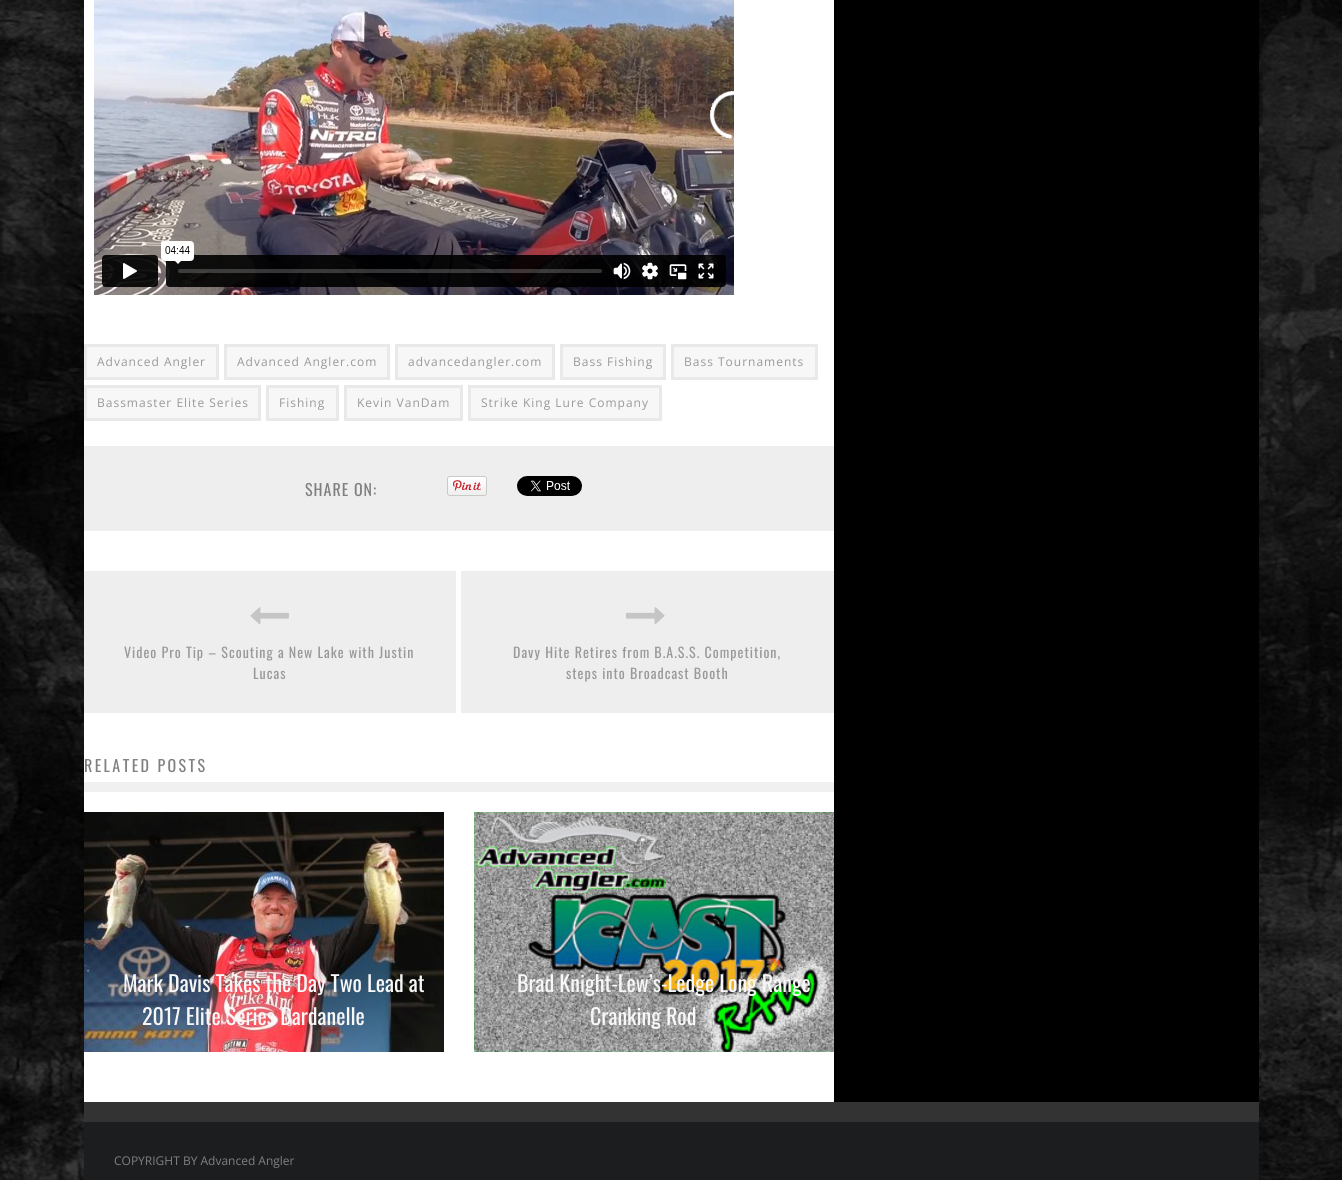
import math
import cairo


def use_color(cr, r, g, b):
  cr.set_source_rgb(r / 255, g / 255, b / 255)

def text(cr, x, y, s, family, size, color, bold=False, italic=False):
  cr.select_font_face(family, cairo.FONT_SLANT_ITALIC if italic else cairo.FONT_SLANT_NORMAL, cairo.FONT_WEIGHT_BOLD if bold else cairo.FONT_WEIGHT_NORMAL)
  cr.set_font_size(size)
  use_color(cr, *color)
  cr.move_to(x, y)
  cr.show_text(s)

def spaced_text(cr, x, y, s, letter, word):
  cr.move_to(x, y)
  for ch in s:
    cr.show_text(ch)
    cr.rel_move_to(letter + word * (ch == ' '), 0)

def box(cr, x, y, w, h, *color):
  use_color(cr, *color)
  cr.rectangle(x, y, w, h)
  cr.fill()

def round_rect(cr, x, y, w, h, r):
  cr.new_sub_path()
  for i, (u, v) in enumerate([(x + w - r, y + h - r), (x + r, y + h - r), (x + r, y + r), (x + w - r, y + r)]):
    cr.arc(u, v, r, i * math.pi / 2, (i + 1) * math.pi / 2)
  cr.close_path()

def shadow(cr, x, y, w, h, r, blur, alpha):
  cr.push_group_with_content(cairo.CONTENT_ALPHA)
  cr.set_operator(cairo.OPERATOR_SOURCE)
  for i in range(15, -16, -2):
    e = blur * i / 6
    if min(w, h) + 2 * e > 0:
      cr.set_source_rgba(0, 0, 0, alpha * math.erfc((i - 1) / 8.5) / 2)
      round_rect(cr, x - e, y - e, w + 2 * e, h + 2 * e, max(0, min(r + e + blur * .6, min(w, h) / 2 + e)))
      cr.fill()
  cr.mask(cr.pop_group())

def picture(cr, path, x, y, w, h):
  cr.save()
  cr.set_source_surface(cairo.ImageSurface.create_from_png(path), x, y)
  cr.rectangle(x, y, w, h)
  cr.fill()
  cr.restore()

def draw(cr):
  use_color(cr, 255, 255, 255)
  cr.paint()
  picture(cr, "img_01.png", 0, 0, 1342, 1180)
  use_color(cr, 0, 0, 0)
  shadow(cr, 74, -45, 1175, 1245, 0, 15, 0.15)
  box(cr, 834, 0, 425, 1102, 0, 0, 0)
  box(cr, 84, 0, 750, 1102, 255, 255, 255)
  picture(cr, "img_02.png", 94, 0, 640, 295)
  use_color(cr, 247, 247, 247)
  cr.rectangle(85.5, 345.5, 132, 33)
  cr.fill_preserve()
  use_color(cr, 233, 233, 233)
  cr.set_line_width(3)
  cr.stroke()
  use_color(cr, 247, 247, 247)
  cr.rectangle(225.5, 345.5, 163, 33)
  cr.fill_preserve()
  use_color(cr, 233, 233, 233)
  cr.stroke()
  use_color(cr, 247, 247, 247)
  cr.rectangle(396.5, 345.5, 157, 33)
  cr.fill_preserve()
  use_color(cr, 233, 233, 233)
  cr.stroke()
  use_color(cr, 247, 247, 247)
  cr.rectangle(561.5, 345.5, 103, 33)
  cr.fill_preserve()
  use_color(cr, 233, 233, 233)
  cr.stroke()
  use_color(cr, 247, 247, 247)
  cr.rectangle(672.5, 345.5, 144, 33)
  cr.fill_preserve()
  use_color(cr, 233, 233, 233)
  cr.stroke()
  use_color(cr, 247, 247, 247)
  cr.rectangle(85.5, 386.5, 174, 33)
  cr.fill_preserve()
  use_color(cr, 233, 233, 233)
  cr.stroke()
  use_color(cr, 247, 247, 247)
  cr.rectangle(267.5, 386.5, 70, 33)
  cr.fill_preserve()
  use_color(cr, 233, 233, 233)
  cr.stroke()
  use_color(cr, 247, 247, 247)
  cr.rectangle(345.5, 386.5, 116, 33)
  cr.fill_preserve()
  use_color(cr, 233, 233, 233)
  cr.stroke()
  use_color(cr, 247, 247, 247)
  cr.rectangle(469.5, 386.5, 191, 33)
  cr.fill_preserve()
  use_color(cr, 233, 233, 233)
  cr.stroke()
  box(cr, 84, 446, 750, 85, 238, 238, 238)
  picture(cr, "img_03.png", 447, 476, 40, 20)
  picture(cr, "img_04.png", 517, 476, 65, 20)
  box(cr, 84, 571, 750, 142, 238, 238, 238)
  box(cr, 456, 571, 5, 142, 255, 255, 255)
  picture(cr, "img_05.png", 250, 607, 39, 18)
  picture(cr, "img_06.png", 626, 607, 39, 18)
  box(cr, 84, 782, 750, 10, 240, 240, 240)
  picture(cr, "img_07.png", 84, 812, 360, 240)
  box(cr, 474, 812, 360, 240, 19, 234, 19)
  picture(cr, "img_08.png", 474, 812, 360, 240)
  box(cr, 84, 1102, 1175, 20, 51, 51, 51)
  box(cr, 84, 1122, 1175, 58, 28, 29, 30)
  cr.select_font_face("Open Sans")
  cr.set_font_size(12)
  use_color(cr, 153, 153, 153)
  spaced_text(cr, 97, 366, "Advanced Angler", 1, 0)
  spaced_text(cr, 237, 366, "Advanced Angler.com", 1, 0)
  spaced_text(cr, 408, 366, "advancedangler.com", 1, 0)
  spaced_text(cr, 573, 366, "Bass Fishing", 1, 0)
  spaced_text(cr, 684, 366, "Bass Tournaments", 1, 0)
  spaced_text(cr, 97, 407, "Bassmaster Elite Series", 1, 0)
  spaced_text(cr, 279, 407, "Fishing", 1, 0)
  spaced_text(cr, 357, 407, "Kevin VanDam", 1, 0)
  spaced_text(cr, 481, 407, "Strike King Lure Company", 1, 0)
  cr.select_font_face("Oswald")
  cr.set_font_size(16)
  use_color(cr, 128, 128, 128)
  spaced_text(cr, 305, 496, "SHARE ON:", 1, 0)
  cr.set_font_size(14)
  use_color(cr, 153, 153, 153)
  spaced_text(cr, 124, 658, "Video Pro Tip – Scouting a New Lake with Justin", 1, 0)
  spaced_text(cr, 253, 679, "Lucas", 1, 0)
  spaced_text(cr, 513, 658, "Davy Hite Retires from B.A.S.S. Competition,", 1, 0)
  spaced_text(cr, 566, 679, "steps into Broadcast Booth", 1, 0)
  cr.set_font_size(16)
  use_color(cr, 128, 128, 128)
  spaced_text(cr, 84, 772, "RELATED POSTS", 2.4, 0)
  text(cr, 123, 992, "Mark Davis Takes the Day Two Lead at", "Oswald", 22, (247, 247, 247))
  text(cr, 142, 1025, "2017 Elite Series Dardanelle", "Oswald", 22, (247, 247, 247))
  text(cr, 517, 992, "Brad Knight-Lew’s-Ledge Long Range", "Oswald", 22, (247, 247, 247))
  text(cr, 590, 1025, "Cranking Rod", "Oswald", 22, (247, 247, 247))
  text(cr, 114, 1165, "COPYRIGHT BY Advanced Angler", "Open Sans", 12, (128, 128, 128))


surface = cairo.ImageSurface(cairo.FORMAT_RGB24, 1342, 1180)
cr = cairo.Context(surface)
options = cairo.FontOptions()
options.set_hint_metrics(cairo.HINT_METRICS_OFF)
options.set_hint_style(cairo.HINT_STYLE_NONE)
cr.set_font_options(options)
cr.set_miter_limit(4)
draw(cr)
surface.write_to_png("out.png")
